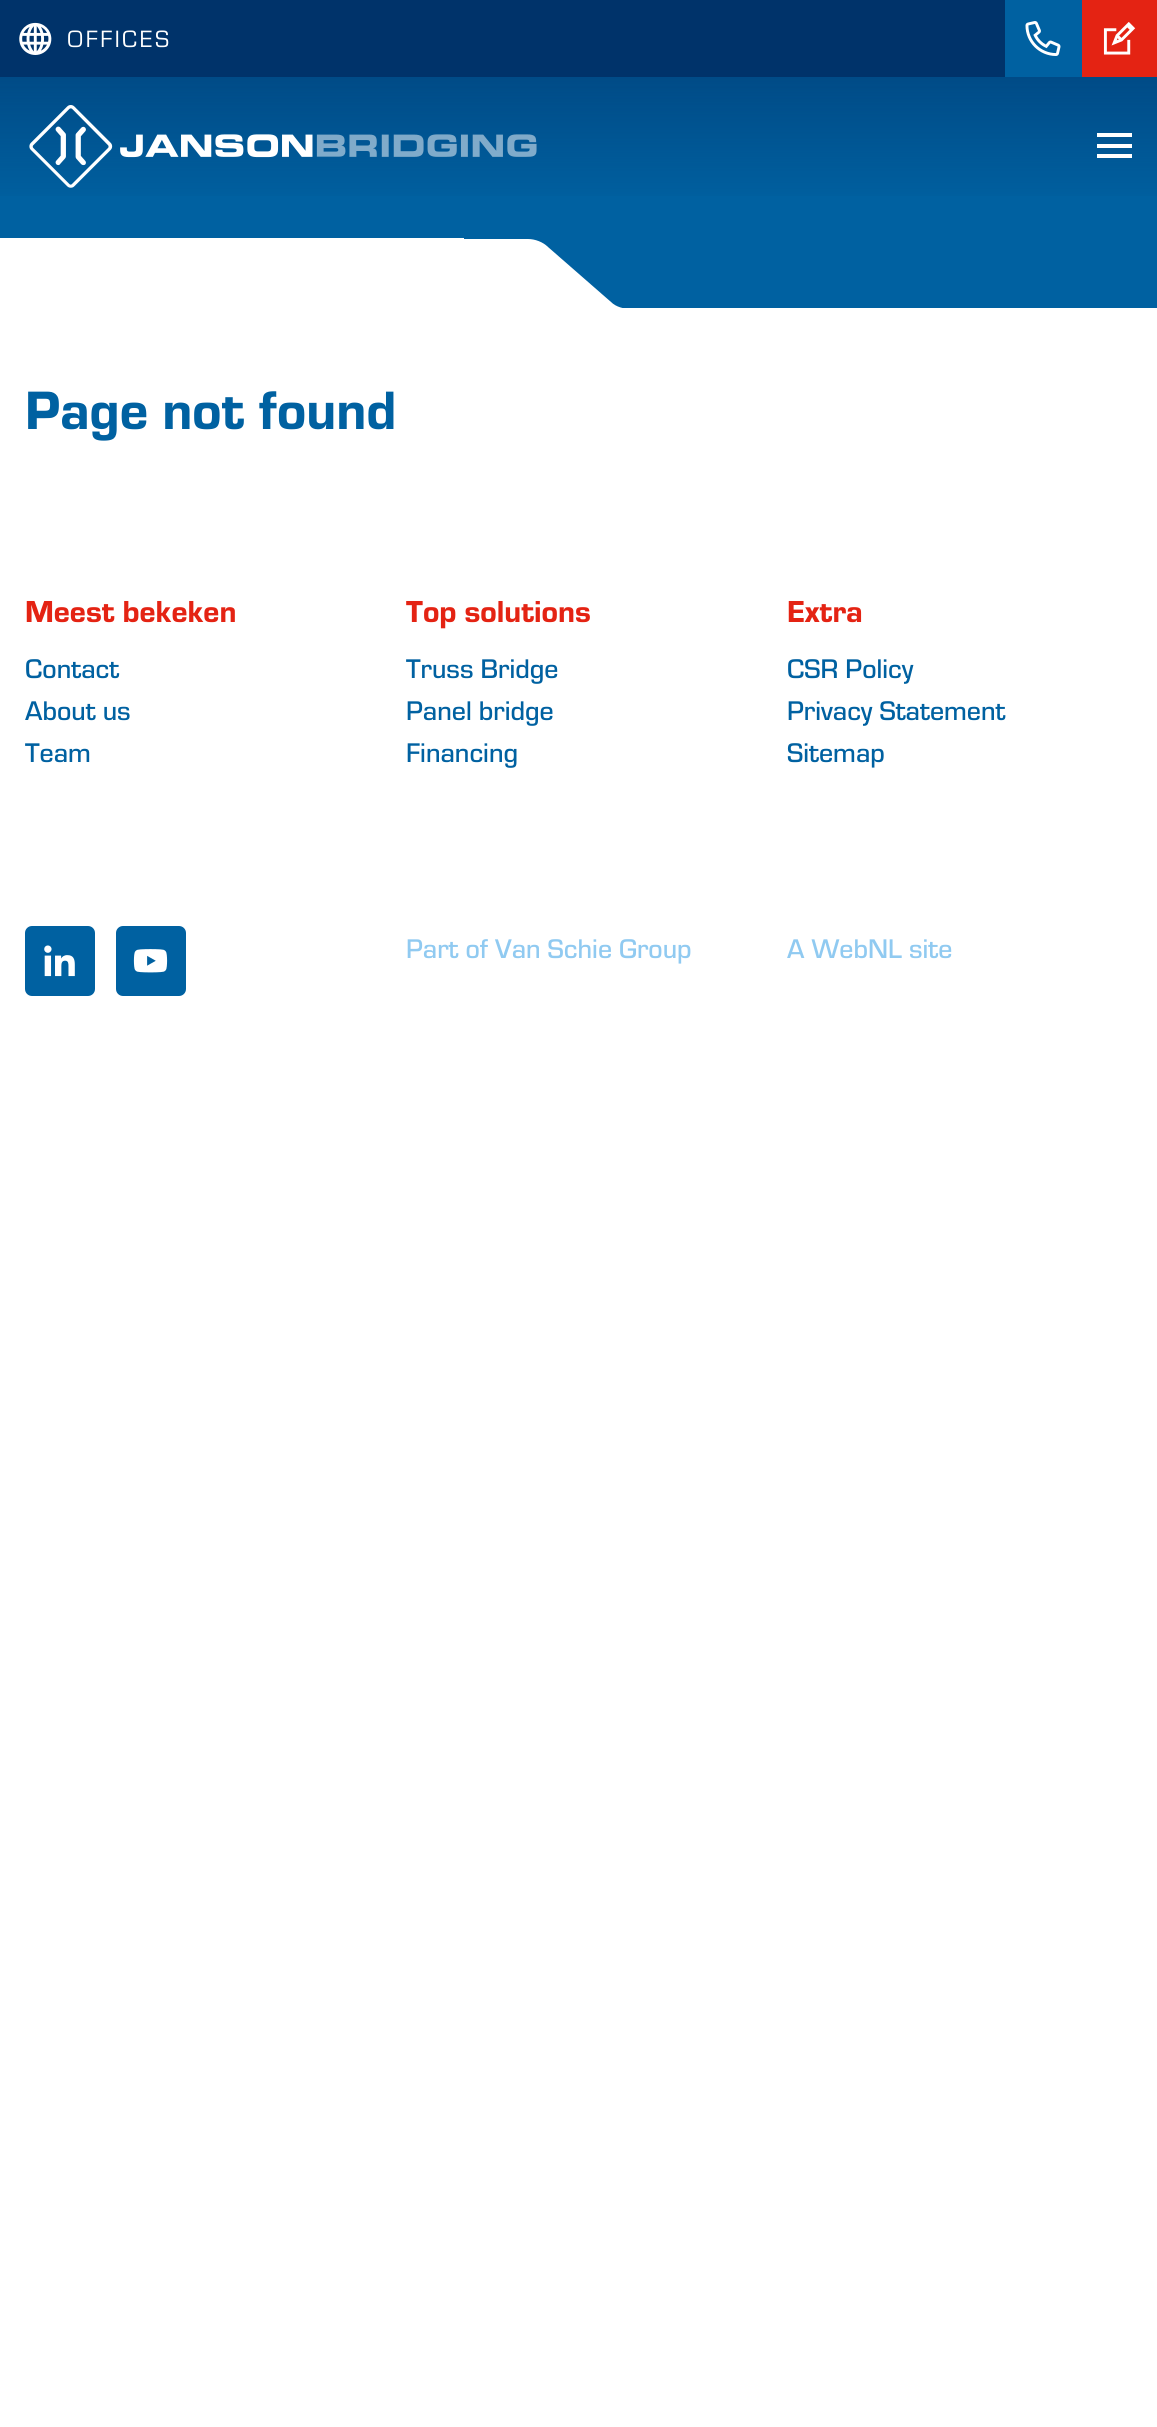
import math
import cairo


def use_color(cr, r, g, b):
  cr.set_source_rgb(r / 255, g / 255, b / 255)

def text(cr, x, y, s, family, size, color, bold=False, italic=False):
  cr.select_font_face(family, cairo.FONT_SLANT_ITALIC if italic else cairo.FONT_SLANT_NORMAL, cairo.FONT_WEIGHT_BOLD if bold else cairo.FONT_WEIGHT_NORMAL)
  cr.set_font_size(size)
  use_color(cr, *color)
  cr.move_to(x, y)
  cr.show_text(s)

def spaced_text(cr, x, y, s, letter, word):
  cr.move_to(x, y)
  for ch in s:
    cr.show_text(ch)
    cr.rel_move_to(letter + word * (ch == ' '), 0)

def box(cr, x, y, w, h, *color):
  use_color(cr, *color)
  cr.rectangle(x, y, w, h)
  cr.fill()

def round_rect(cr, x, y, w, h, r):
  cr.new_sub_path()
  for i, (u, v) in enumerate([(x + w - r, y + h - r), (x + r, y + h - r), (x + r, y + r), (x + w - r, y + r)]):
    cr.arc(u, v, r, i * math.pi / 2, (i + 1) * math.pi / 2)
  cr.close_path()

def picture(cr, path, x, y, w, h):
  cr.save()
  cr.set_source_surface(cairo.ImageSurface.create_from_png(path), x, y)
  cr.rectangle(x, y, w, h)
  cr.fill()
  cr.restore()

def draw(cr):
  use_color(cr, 255, 255, 255)
  cr.paint()
  box(cr, 0, 0, 1005, 77, 0, 51, 106)
  picture(cr, "img_01.png", 19, 22, 33, 33)
  box(cr, 1005, 0, 77, 77, 0, 97, 161)
  picture(cr, "img_02.png", 1025, 21, 36, 35)
  box(cr, 1082, 0, 75, 77, 228, 35, 19)
  picture(cr, "img_03.png", 1103, 22, 33, 33)
  box(cr, 0, 77, 1157, 231, 0, 97, 161)
  gradient = cairo.LinearGradient(579, 0, 579, 210)
  gradient.add_color_stop_rgba(0, 0, 0.2, 0.416, 0.75)
  gradient.add_color_stop_rgba(1, 0, 0.2, 0.416, 0)
  cr.set_source(gradient)
  cr.rectangle(0, 77, 1157, 119)
  cr.fill()
  picture(cr, "img_04.png", 29, 105, 508, 83)
  box(cr, 1097, 144, 35, 4, 255, 255, 255)
  box(cr, 1097, 133, 35, 4, 255, 255, 255)
  box(cr, 1097, 154, 35, 4, 255, 255, 255)
  box(cr, 0, 238, 464, 70, 255, 255, 255)
  cr.save()
  cr.rectangle(264, 238, 630, 70)
  cr.clip()
  cr.new_path()
  cr.move_to(264, 309)
  cr.line_to(631, 309)
  cr.curve_to(624, 309, 616, 307, 611, 302)
  cr.line_to(548, 247)
  cr.curve_to(543, 242, 535, 239, 528, 239)
  cr.line_to(264, 239)
  cr.close_path()
  cr.fill()
  cr.restore()
  use_color(cr, 0, 97, 161)
  round_rect(cr, 25, 926, 70, 70, 7)
  cr.fill()
  picture(cr, "img_05.png", 44, 945, 31, 32)
  round_rect(cr, 116, 926, 70, 70, 7)
  cr.fill()
  picture(cr, "img_06.png", 133, 949, 35, 24)
  cr.select_font_face("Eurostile")
  cr.set_font_size(24.5)
  use_color(cr, 255, 255, 255)
  spaced_text(cr, 67, 47, "OFFICES", 2.5, 0)
  text(cr, 25, 429, "Page not found", "Eurostile Black", 56, (0, 97, 161))
  text(cr, 25, 622, "Meest bekeken", "Eurostile Black", 31.5, (228, 35, 19))
  text(cr, 25, 678, "Contact", "Eurostile Medium", 28, (0, 97, 161))
  text(cr, 25, 720, "About us", "Eurostile Medium", 28, (0, 97, 161))
  text(cr, 25, 762, "Team", "Eurostile Medium", 28, (0, 97, 161))
  text(cr, 406, 622, "Top solutions", "Eurostile Black", 31.5, (228, 35, 19))
  text(cr, 406, 678, "Truss Bridge", "Eurostile Medium", 28, (0, 97, 161))
  text(cr, 406, 720, "Panel bridge", "Eurostile Medium", 28, (0, 97, 161))
  text(cr, 406, 762, "Financing", "Eurostile Medium", 28, (0, 97, 161))
  text(cr, 787, 622, "Extra", "Eurostile Black", 31.5, (228, 35, 19))
  text(cr, 787, 678, "CSR Policy", "Eurostile Medium", 28, (0, 97, 161))
  text(cr, 787, 720, "Privacy Statement", "Eurostile Medium", 28, (0, 97, 161))
  text(cr, 787, 762, "Sitemap", "Eurostile Medium", 28, (0, 97, 161))
  text(cr, 406, 958, "Part of Van Schie Group", "Eurostile Medium", 28, (144, 202, 241))
  text(cr, 787, 958, "A WebNL site", "Eurostile Medium", 28, (144, 202, 241))


surface = cairo.ImageSurface(cairo.FORMAT_RGB24, 1157, 2427)
cr = cairo.Context(surface)
options = cairo.FontOptions()
options.set_hint_metrics(cairo.HINT_METRICS_OFF)
options.set_hint_style(cairo.HINT_STYLE_NONE)
cr.set_font_options(options)
cr.set_miter_limit(4)
draw(cr)
surface.write_to_png("out.png")
